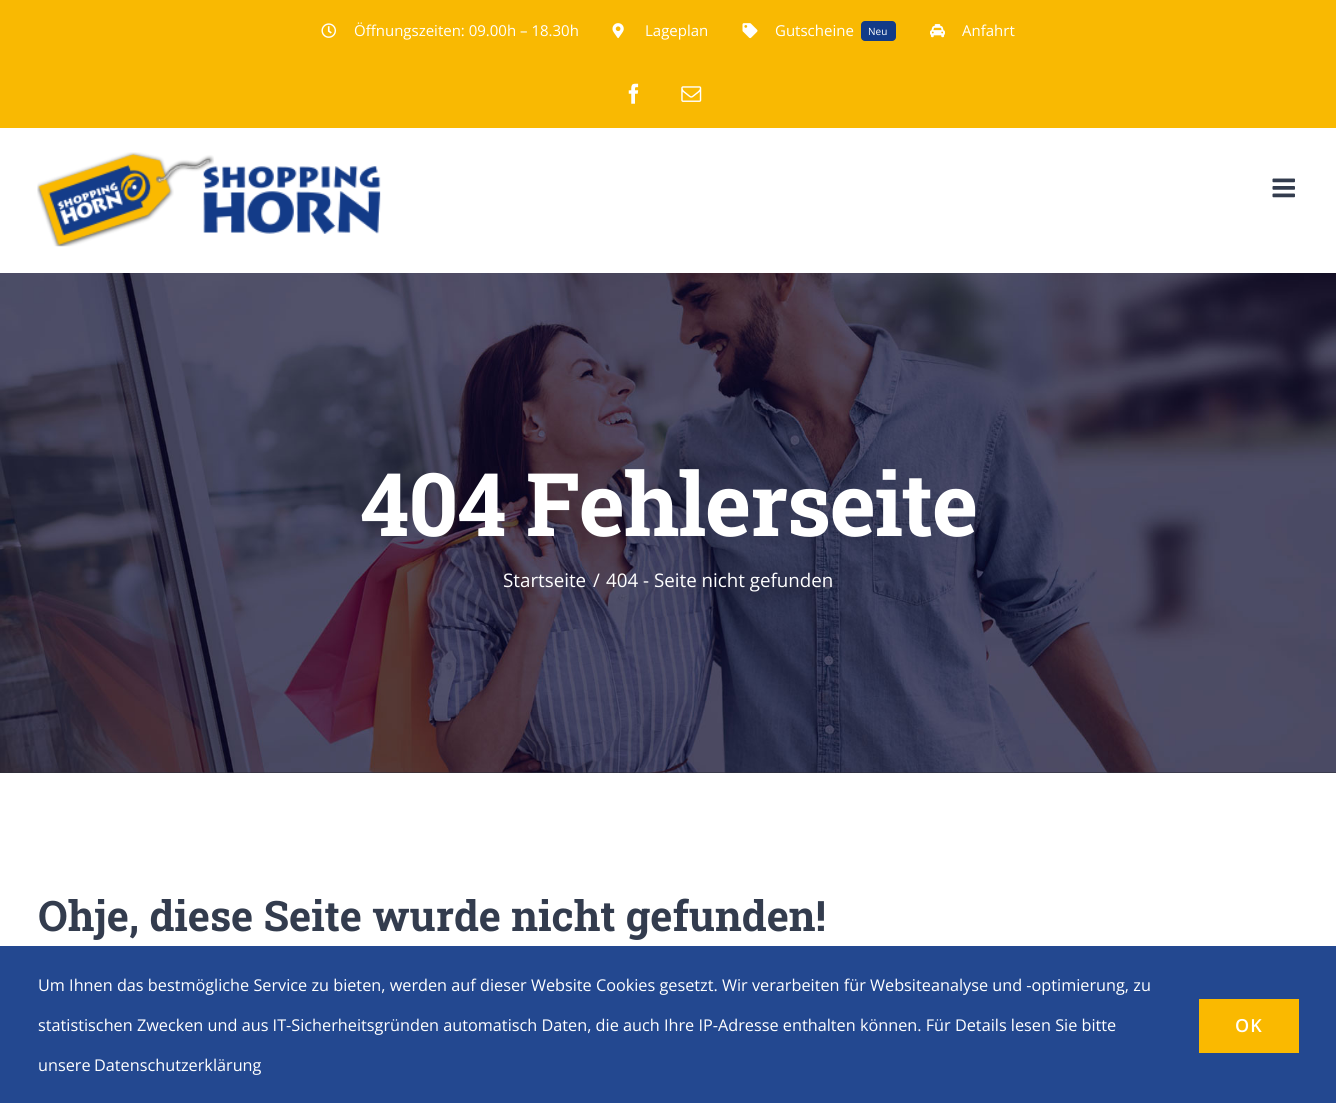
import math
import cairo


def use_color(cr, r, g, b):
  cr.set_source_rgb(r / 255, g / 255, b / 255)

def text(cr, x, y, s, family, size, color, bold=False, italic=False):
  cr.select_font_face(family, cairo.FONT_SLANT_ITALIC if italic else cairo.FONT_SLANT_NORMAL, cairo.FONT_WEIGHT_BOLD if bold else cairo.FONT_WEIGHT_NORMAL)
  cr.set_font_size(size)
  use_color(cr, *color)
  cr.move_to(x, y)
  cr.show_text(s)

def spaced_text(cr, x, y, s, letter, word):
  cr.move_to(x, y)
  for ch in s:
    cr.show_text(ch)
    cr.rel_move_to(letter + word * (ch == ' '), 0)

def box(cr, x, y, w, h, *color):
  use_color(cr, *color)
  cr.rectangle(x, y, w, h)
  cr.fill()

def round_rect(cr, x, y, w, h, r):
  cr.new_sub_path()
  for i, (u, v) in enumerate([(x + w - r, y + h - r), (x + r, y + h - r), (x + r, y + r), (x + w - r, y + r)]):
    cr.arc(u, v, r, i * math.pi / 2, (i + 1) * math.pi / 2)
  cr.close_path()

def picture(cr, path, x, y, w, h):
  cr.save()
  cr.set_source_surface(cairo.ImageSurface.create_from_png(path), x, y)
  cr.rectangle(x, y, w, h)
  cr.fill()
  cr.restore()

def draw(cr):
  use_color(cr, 255, 255, 255)
  cr.paint()
  box(cr, 0, 0, 1336, 128, 249, 185, 2)
  picture(cr, "img_01.png", 321, 23, 15, 15)
  picture(cr, "img_02.png", 612, 23, 12, 16)
  picture(cr, "img_03.png", 742, 23, 16, 16)
  use_color(cr, 19, 59, 136)
  round_rect(cr, 861, 21, 35, 20, 4)
  cr.fill()
  picture(cr, "img_04.png", 930, 24, 15, 14)
  picture(cr, "img_05.png", 628, 83, 11, 21)
  picture(cr, "img_06.png", 681, 86, 21, 16)
  picture(cr, "img_07.png", 37, 152, 344, 95)
  picture(cr, "img_08.png", 1272, 178, 23, 20)
  box(cr, 0, 772, 1336, 1, 44, 47, 57)
  picture(cr, "img_09.png", 0, 273, 1336, 500)
  box(cr, 0, 946, 1336, 157, 35, 72, 144)
  box(cr, 1199, 999, 100, 54, 250, 185, 0)
  text(cr, 354, 36, "Öffnungszeiten: 09.00h – 18.30h", "Open Sans", 15, (255, 255, 255))
  text(cr, 645, 36, "Lageplan", "Open Sans", 15, (255, 255, 255))
  text(cr, 775, 36, "Gutscheine", "Open Sans", 15, (255, 255, 255))
  text(cr, 868, 35, "Neu", "Open Sans", 10, (255, 255, 255))
  text(cr, 962, 36, "Anfahrt", "Open Sans", 15, (255, 255, 255))
  cr.select_font_face("Roboto Slab", cairo.FONT_SLANT_NORMAL, cairo.FONT_WEIGHT_BOLD)
  cr.set_font_size(87.75)
  spaced_text(cr, 360, 536, "404 Fehlerseite", -1.25, 0)
  text(cr, 503, 587, "Startseite", "Open Sans", 18.75, (255, 255, 255))
  text(cr, 593, 587, "/", "Open Sans", 18.75, (255, 255, 255))
  text(cr, 606, 587, "404 - Seite nicht gefunden", "Open Sans", 18.75, (255, 255, 255))
  text(cr, 38, 931, "Ohje, diese Seite wurde nicht gefunden!", "Roboto Slab", 42, (51, 60, 78), bold=True)
  text(cr, 38, 991, "Um Ihnen das bestmögliche Service zu bieten, werden auf dieser Website Cookies gesetzt. Wir verarbeiten für Websiteanalyse und -optimierung, zu", "Open Sans", 16.25, (255, 255, 255))
  text(cr, 38, 1031, "statistischen Zwecken und aus IT-Sicherheitsgründen automatisch Daten, die auch Ihre IP-Adresse enthalten können. Für Details lesen Sie bitte", "Open Sans", 16.25, (255, 255, 255))
  text(cr, 38, 1071, "unsere", "Open Sans", 16.25, (255, 255, 255))
  text(cr, 94, 1071, "Datenschutzerklärung", "Open Sans", 16.25, (255, 255, 255))
  cr.select_font_face("Open Sans SemiBold")
  cr.set_font_size(18)
  spaced_text(cr, 1235, 1032, "OK", 1, 0)


surface = cairo.ImageSurface(cairo.FORMAT_RGB24, 1336, 1103)
cr = cairo.Context(surface)
options = cairo.FontOptions()
options.set_hint_metrics(cairo.HINT_METRICS_OFF)
options.set_hint_style(cairo.HINT_STYLE_NONE)
cr.set_font_options(options)
cr.set_miter_limit(4)
draw(cr)
surface.write_to_png("out.png")
